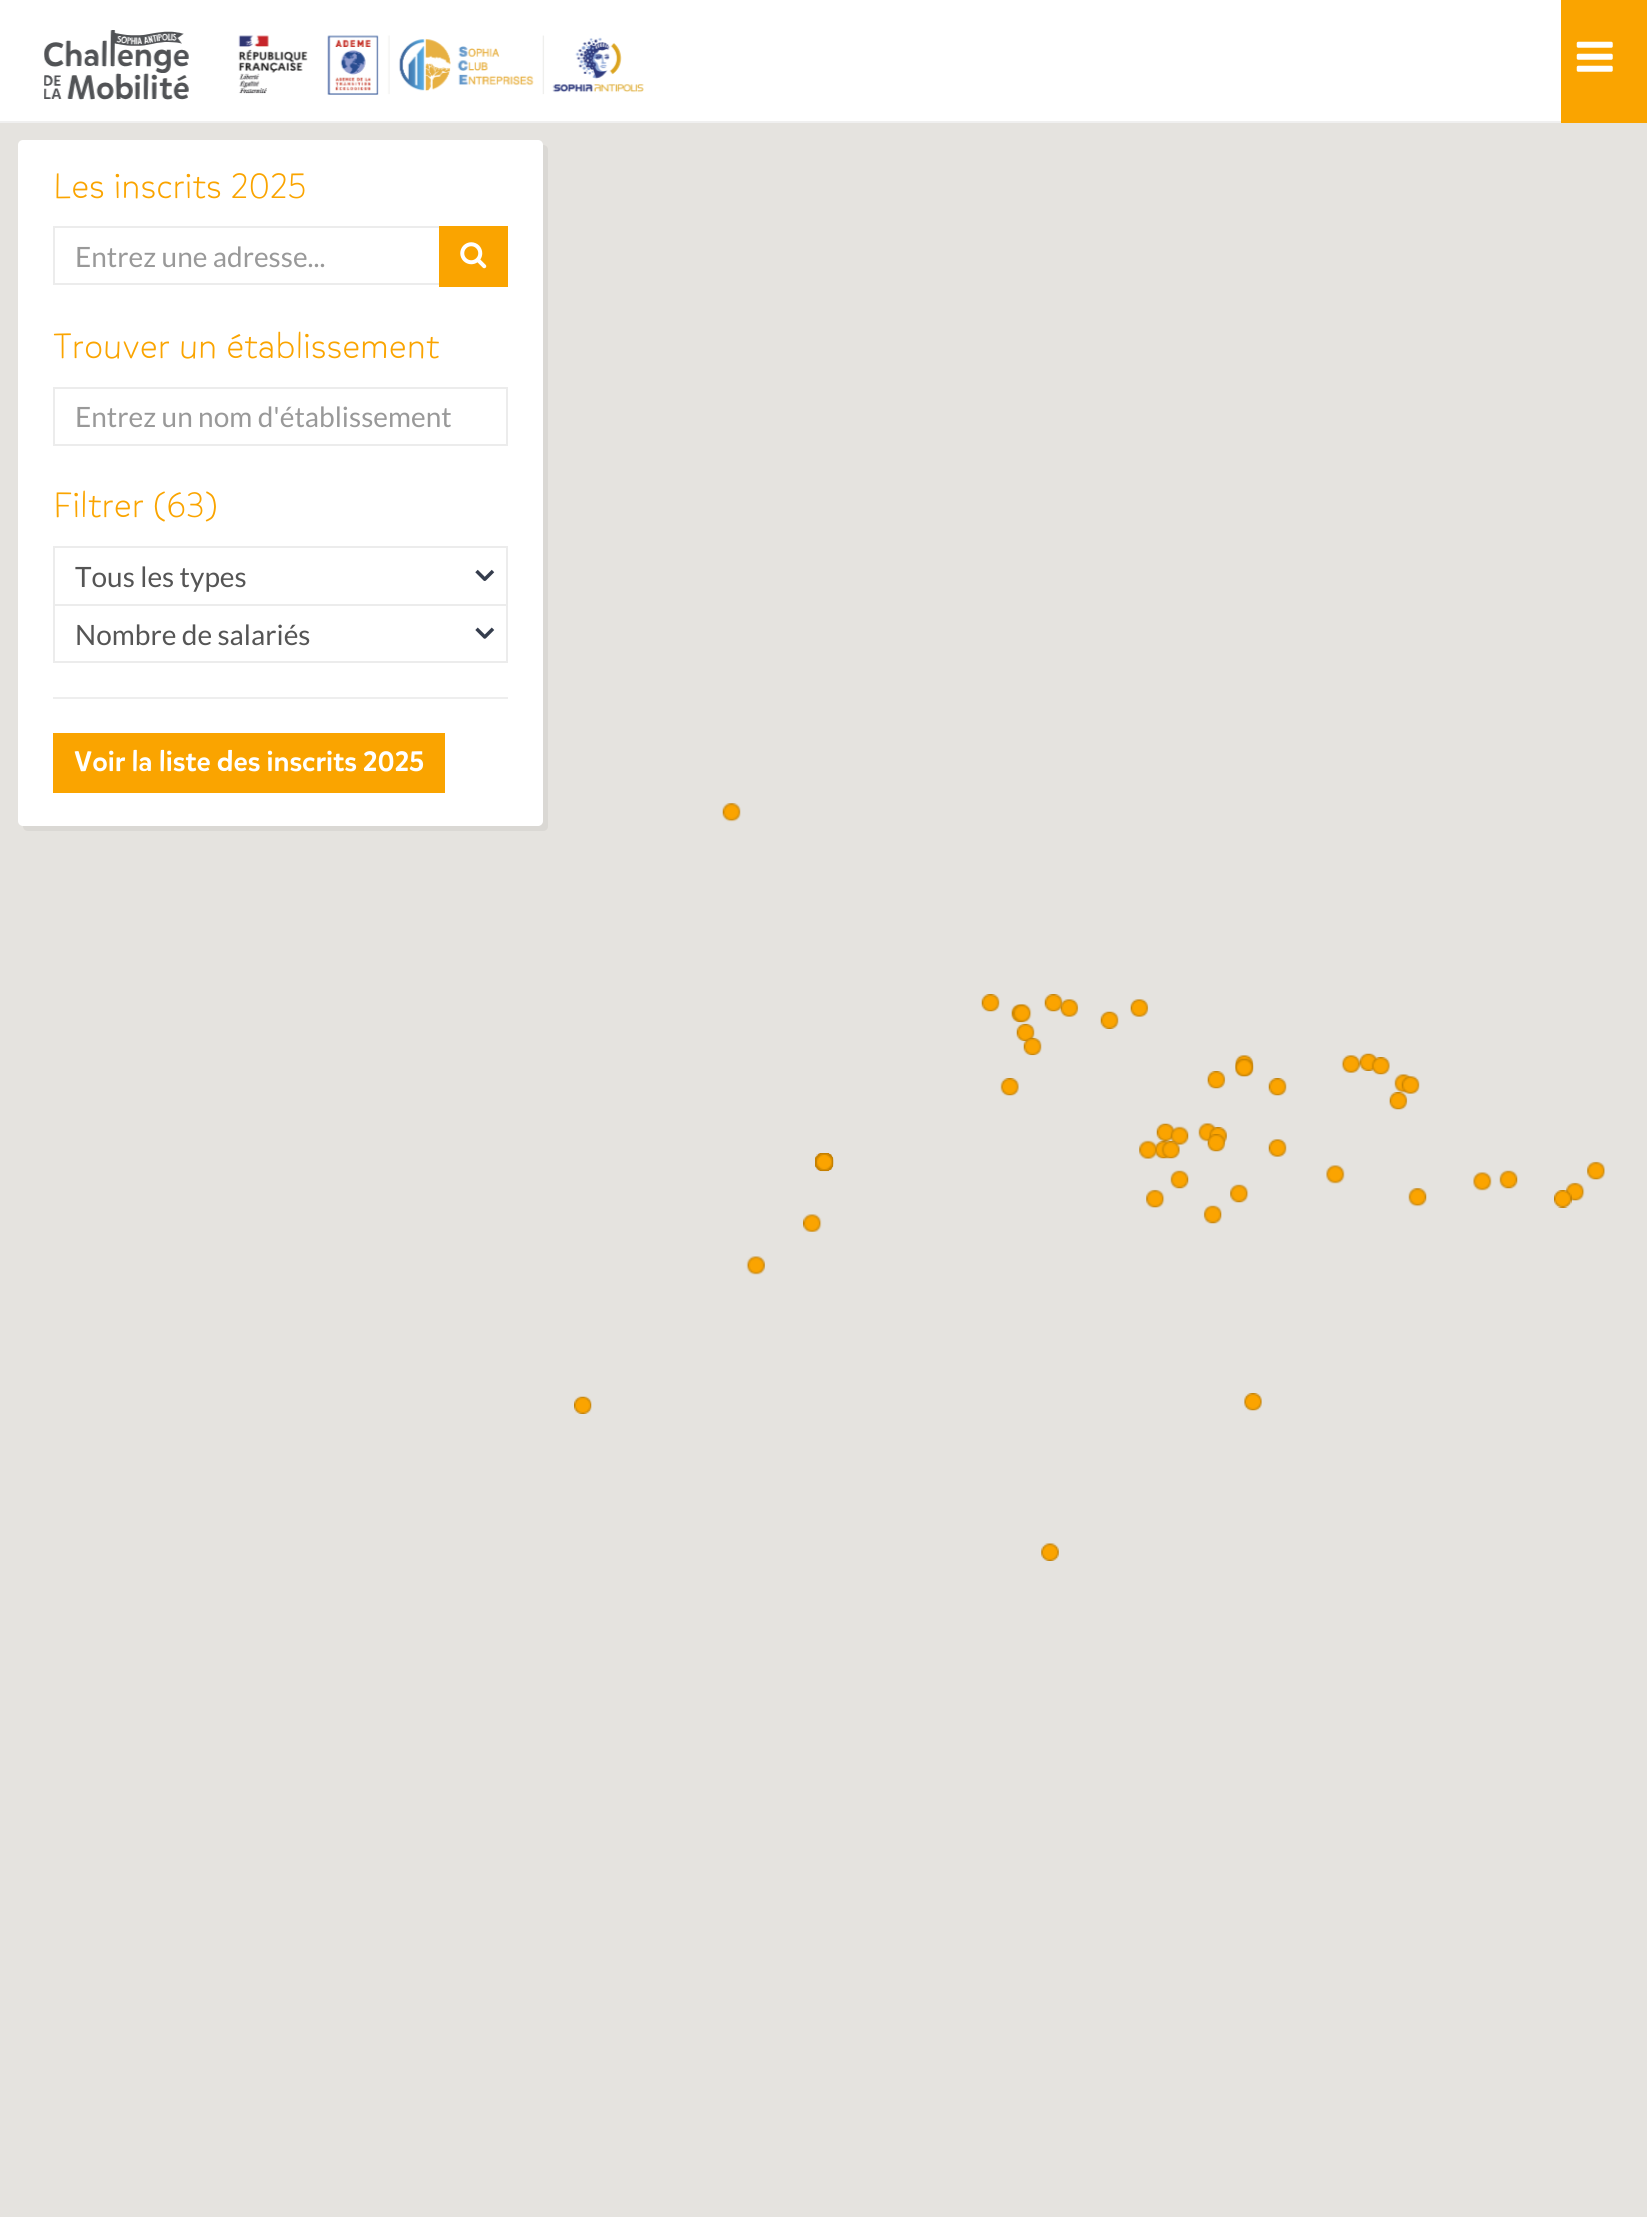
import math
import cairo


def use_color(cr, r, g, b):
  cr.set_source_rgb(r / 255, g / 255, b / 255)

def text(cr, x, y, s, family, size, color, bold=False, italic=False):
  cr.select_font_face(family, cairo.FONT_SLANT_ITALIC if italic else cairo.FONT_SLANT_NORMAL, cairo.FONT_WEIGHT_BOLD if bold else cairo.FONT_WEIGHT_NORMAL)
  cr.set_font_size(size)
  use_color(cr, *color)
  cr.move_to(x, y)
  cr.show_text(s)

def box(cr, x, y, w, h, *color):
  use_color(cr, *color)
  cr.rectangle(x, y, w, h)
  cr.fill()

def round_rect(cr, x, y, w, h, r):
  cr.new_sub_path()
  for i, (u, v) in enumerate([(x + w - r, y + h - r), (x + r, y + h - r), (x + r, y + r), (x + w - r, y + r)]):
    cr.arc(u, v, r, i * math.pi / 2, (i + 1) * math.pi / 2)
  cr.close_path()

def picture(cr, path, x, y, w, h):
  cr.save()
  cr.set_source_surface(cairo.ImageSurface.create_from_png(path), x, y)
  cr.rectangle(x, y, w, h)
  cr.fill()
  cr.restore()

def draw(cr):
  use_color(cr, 229, 227, 223)
  cr.paint()
  box(cr, 0, 0, 1561, 121, 255, 255, 255)
  box(cr, 0, 121, 1561, 2, 240, 240, 240)
  picture(cr, "img_01.png", 44, 30, 145, 70)
  picture(cr, "img_02.png", 238, 35, 406, 60)
  box(cr, 1561, 0, 86, 123, 250, 164, 0)
  picture(cr, "img_03.png", 1576, 41, 37, 31)
  use_color(cr, 218, 216, 212)
  cr.new_path()
  cr.move_to(23, 826)
  cr.curve_to(23, 829, 25, 831, 28, 831)
  cr.line_to(543, 831)
  cr.curve_to(546, 831, 548, 829, 548, 826)
  cr.line_to(548, 150)
  cr.curve_to(548, 147, 546, 145, 543, 145)
  cr.line_to(542, 145)
  cr.line_to(542, 821)
  cr.curve_to(542, 824, 540, 826, 537, 826)
  cr.close_path()
  cr.fill()
  use_color(cr, 255, 255, 255)
  round_rect(cr, 18, 140, 525, 686, 5)
  cr.fill()
  cr.rectangle(54, 227, 386, 57)
  use_color(cr, 236, 236, 236)
  cr.stroke()
  box(cr, 439, 226, 69, 61, 250, 164, 0)
  picture(cr, "img_04.png", 460, 242, 27, 27)
  cr.rectangle(54, 388, 453, 57)
  use_color(cr, 236, 236, 236)
  cr.stroke()
  picture(cr, "img_05.png", 475, 569, 20, 12)
  cr.rectangle(54, 547, 453, 58)
  cr.stroke()
  picture(cr, "img_06.png", 475, 627, 20, 12)
  cr.rectangle(54, 605, 453, 57)
  cr.stroke()
  box(cr, 53, 697, 455, 2, 238, 238, 238)
  box(cr, 53, 733, 392, 60, 250, 164, 0)
  picture(cr, "img_07.png", 722, 803, 19, 19)
  picture(cr, "img_08.png", 981, 994, 19, 18)
  picture(cr, "img_09.png", 1011, 1004, 19, 18)
  picture(cr, "img_10.png", 1044, 994, 19, 18)
  picture(cr, "img_11.png", 1060, 999, 19, 18)
  picture(cr, "img_12.png", 1130, 999, 19, 18)
  picture(cr, "img_13.png", 1013, 1004, 19, 19)
  picture(cr, "img_14.png", 1100, 1011, 19, 18)
  picture(cr, "img_15.png", 1016, 1023, 19, 19)
  picture(cr, "img_16.png", 1023, 1037, 19, 19)
  picture(cr, "img_12.png", 1235, 1055, 19, 18)
  picture(cr, "img_14.png", 1359, 1053, 19, 18)
  picture(cr, "img_17.png", 1341, 1055, 19, 18)
  picture(cr, "img_18.png", 1371, 1057, 19, 18)
  picture(cr, "img_20.png", 1235, 1059, 19, 18)
  picture(cr, "img_19.png", 1235, 1058, 19, 19)
  picture(cr, "img_21.png", 1207, 1071, 19, 18)
  picture(cr, "img_22.png", 1394, 1074, 18, 19)
  picture(cr, "img_23.png", 1000, 1078, 19, 18)
  picture(cr, "img_10.png", 1268, 1078, 19, 18)
  picture(cr, "img_24.png", 1401, 1076, 19, 18)
  picture(cr, "img_25.png", 1389, 1092, 19, 18)
  picture(cr, "img_14.png", 1156, 1123, 19, 18)
  picture(cr, "img_26.png", 1170, 1126, 19, 19)
  picture(cr, "img_27.png", 1198, 1123, 19, 19)
  picture(cr, "img_28.png", 1209, 1127, 18, 18)
  picture(cr, "img_30.png", 1154, 1141, 18, 18)
  picture(cr, "img_29.png", 1139, 1140, 18, 19)
  picture(cr, "img_31.png", 1207, 1134, 19, 18)
  picture(cr, "img_32.png", 1268, 1139, 19, 18)
  picture(cr, "img_33.png", 1161, 1141, 19, 18)
  picture(cr, "img_34.png", 815, 1153, 19, 19)
  picture(cr, "img_35.png", 815, 1153, 18, 18)
  picture(cr, "img_36.png", 815, 1153, 18, 18)
  picture(cr, "img_37.png", 815, 1153, 19, 18)
  picture(cr, "img_38.png", 815, 1153, 18, 18)
  picture(cr, "img_39.png", 815, 1153, 18, 18)
  picture(cr, "img_40.png", 815, 1153, 18, 18)
  picture(cr, "img_41.png", 815, 1153, 18, 18)
  picture(cr, "img_42.png", 815, 1153, 18, 18)
  picture(cr, "img_43.png", 815, 1153, 18, 18)
  picture(cr, "img_44.png", 815, 1153, 18, 18)
  picture(cr, "img_45.png", 815, 1153, 18, 18)
  picture(cr, "img_46.png", 815, 1153, 17, 18)
  picture(cr, "img_47.png", 815, 1153, 17, 18)
  picture(cr, "img_48.png", 815, 1153, 17, 18)
  picture(cr, "img_49.png", 1146, 1189, 19, 19)
  picture(cr, "img_50.png", 1170, 1170, 19, 19)
  picture(cr, "img_51.png", 1230, 1184, 19, 19)
  picture(cr, "img_52.png", 1326, 1165, 19, 19)
  picture(cr, "img_53.png", 1408, 1188, 19, 19)
  picture(cr, "img_52.png", 1473, 1172, 19, 19)
  picture(cr, "img_50.png", 1499, 1170, 19, 19)
  picture(cr, "img_49.png", 1566, 1182, 19, 19)
  picture(cr, "img_54.png", 1554, 1190, 18, 18)
  picture(cr, "img_55.png", 1587, 1161, 18, 19)
  picture(cr, "img_56.png", 803, 1214, 19, 18)
  picture(cr, "img_57.png", 1203, 1205, 19, 19)
  picture(cr, "img_58.png", 746, 1256, 19, 19)
  picture(cr, "img_59.png", 574, 1396, 18, 18)
  picture(cr, "img_60.png", 1244, 1393, 18, 18)
  picture(cr, "img_61.png", 1041, 1543, 18, 18)
  text(cr, 53, 198, "Les inscrits 2025", "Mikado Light", 35, (250, 164, 0))
  text(cr, 75, 267, "Entrez une adresse...", "Lato", 28, (153, 153, 153))
  text(cr, 53, 358, "Trouver un établissement", "Mikado Light", 35, (250, 164, 0))
  text(cr, 75, 427, "Entrez un nom d'établissement", "Lato", 28, (153, 153, 153))
  text(cr, 53, 517, "Filtrer (63)", "Mikado Light", 35, (250, 164, 0))
  text(cr, 75, 587, "Tous les types", "Lato", 28, (85, 85, 85))
  text(cr, 75, 645, "Nombre de salariés", "Lato", 28, (85, 85, 85))
  text(cr, 74, 771, "Voir la liste des inscrits 2025", "Mikado Medium", 28, (255, 255, 255))


surface = cairo.ImageSurface(cairo.FORMAT_RGB24, 1647, 2217)
cr = cairo.Context(surface)
options = cairo.FontOptions()
options.set_hint_metrics(cairo.HINT_METRICS_OFF)
options.set_hint_style(cairo.HINT_STYLE_NONE)
cr.set_font_options(options)
cr.set_miter_limit(4)
draw(cr)
surface.write_to_png("out.png")
